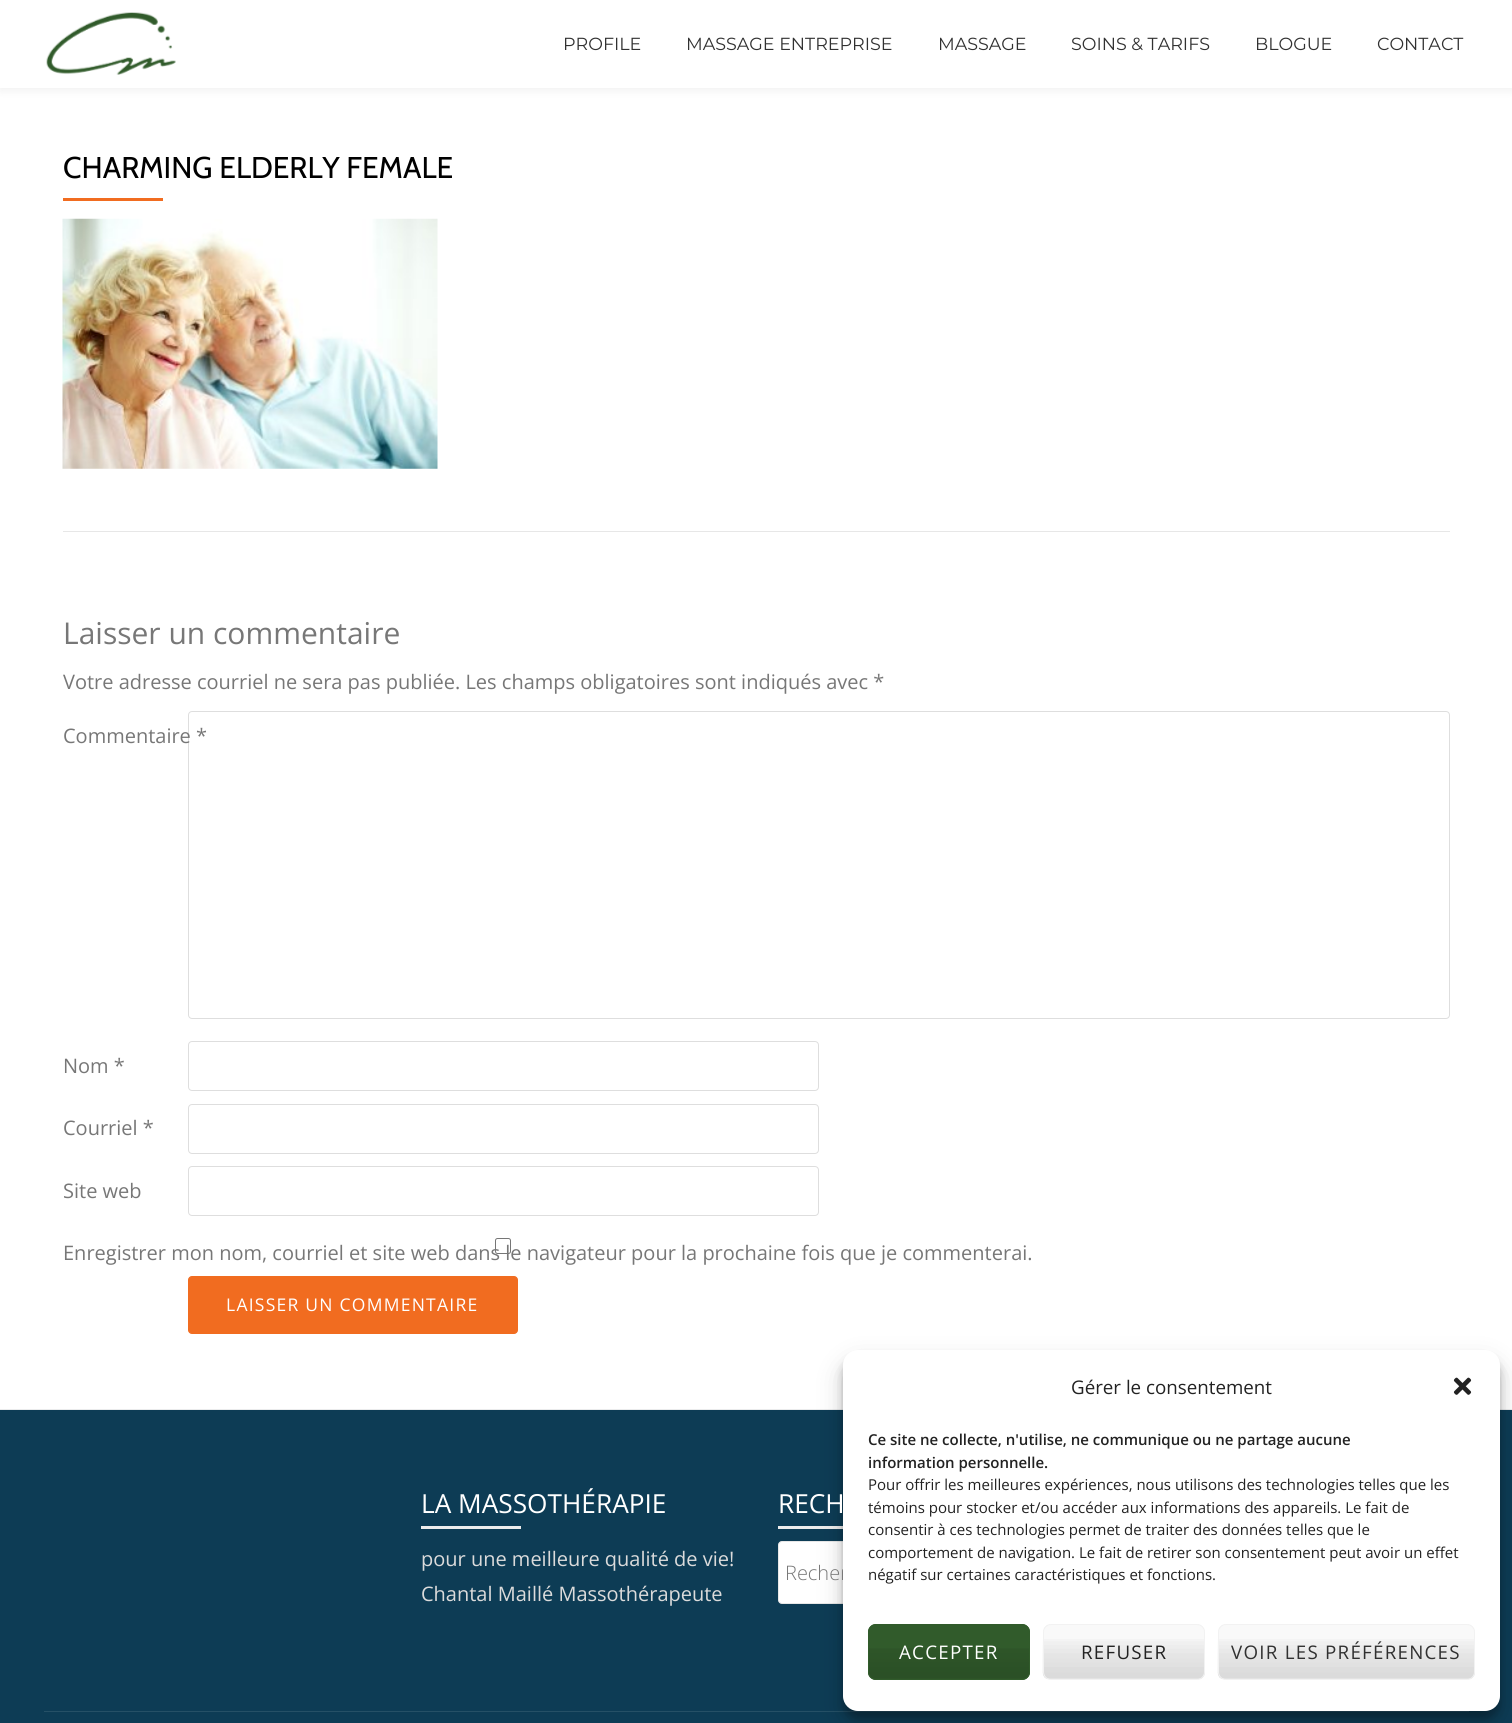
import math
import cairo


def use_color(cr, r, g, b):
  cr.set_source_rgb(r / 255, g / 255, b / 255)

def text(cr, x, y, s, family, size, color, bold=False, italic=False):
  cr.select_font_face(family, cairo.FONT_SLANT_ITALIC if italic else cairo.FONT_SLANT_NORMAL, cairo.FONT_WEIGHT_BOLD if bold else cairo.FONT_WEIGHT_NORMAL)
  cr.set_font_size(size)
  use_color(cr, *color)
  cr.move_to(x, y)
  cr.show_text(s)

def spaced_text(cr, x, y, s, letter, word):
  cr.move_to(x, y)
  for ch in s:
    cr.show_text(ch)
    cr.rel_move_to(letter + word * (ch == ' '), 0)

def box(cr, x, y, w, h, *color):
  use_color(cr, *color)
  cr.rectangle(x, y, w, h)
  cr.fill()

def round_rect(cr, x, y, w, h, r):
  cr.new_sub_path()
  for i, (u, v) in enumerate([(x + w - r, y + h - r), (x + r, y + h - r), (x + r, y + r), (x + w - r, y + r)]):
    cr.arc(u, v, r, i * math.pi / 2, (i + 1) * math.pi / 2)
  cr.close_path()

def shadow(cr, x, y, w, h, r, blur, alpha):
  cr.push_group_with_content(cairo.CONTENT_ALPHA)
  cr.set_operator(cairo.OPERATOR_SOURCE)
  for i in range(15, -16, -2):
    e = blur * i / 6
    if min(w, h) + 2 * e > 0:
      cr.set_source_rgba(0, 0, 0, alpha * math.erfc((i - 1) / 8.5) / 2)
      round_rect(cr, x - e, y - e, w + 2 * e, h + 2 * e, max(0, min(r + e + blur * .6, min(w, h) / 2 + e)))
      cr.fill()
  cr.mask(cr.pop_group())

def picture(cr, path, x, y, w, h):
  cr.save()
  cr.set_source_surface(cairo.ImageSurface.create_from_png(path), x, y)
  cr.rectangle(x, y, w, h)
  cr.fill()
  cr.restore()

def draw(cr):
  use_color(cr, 255, 255, 255)
  cr.paint()
  use_color(cr, 50, 50, 50)
  shadow(cr, 0, 3, 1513, 87, 0, 5, 0.08)
  box(cr, 0, 0, 1512, 88, 255, 255, 255)
  picture(cr, "img_01.png", 46, 12, 130, 63)
  box(cr, 63, 198, 100, 3, 241, 108, 32)
  picture(cr, "img_02.png", 62, 218, 376, 251)
  box(cr, 63, 531, 1387, 1, 231, 231, 231)
  round_rect(cr, 188.5, 711.5, 1261, 307, 3.5)
  use_color(cr, 222, 222, 222)
  cr.set_line_width(1)
  cr.stroke()
  round_rect(cr, 188.5, 1041.5, 630, 49, 3.5)
  cr.stroke()
  round_rect(cr, 188.5, 1104.5, 630, 49, 3.5)
  cr.stroke()
  round_rect(cr, 188.5, 1166.5, 630, 49, 3.5)
  cr.stroke()
  round_rect(cr, 495.5, 1238.5, 15, 15, 2)
  use_color(cr, 118, 118, 118)
  cr.stroke()
  use_color(cr, 241, 108, 32)
  round_rect(cr, 188.5, 1276.5, 329, 57, 3.5)
  cr.fill_preserve()
  cr.stroke()
  box(cr, 0, 1410, 1512, 313, 13, 60, 85)
  box(cr, 0, 1409, 1512, 1, 234, 235, 236)
  box(cr, 421, 1526, 100, 3, 236, 236, 236)
  box(cr, 778, 1526, 65, 3, 236, 236, 236)
  use_color(cr, 255, 255, 255)
  round_rect(cr, 778.5, 1541.5, 311, 62, 3.5)
  cr.fill_preserve()
  use_color(cr, 231, 231, 231)
  cr.stroke()
  box(cr, 44, 1711, 1425, 1, 37, 80, 102)
  use_color(cr, 0, 0, 0)
  shadow(cr, 843, 1358, 657, 361, 15, 4, 0.23)
  shadow(cr, 843, 1363, 657, 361, 15, 12.5, 0.19)
  text(cr, 563, 50, "PROFILE", "Montserrat", 17.5, (49, 49, 49))
  text(cr, 686, 50, "MASSAGE ENTREPRISE", "Montserrat", 17.5, (49, 49, 49))
  text(cr, 938, 50, "MASSAGE", "Montserrat", 17.5, (49, 49, 49))
  text(cr, 1071, 50, "SOINS & TARIFS", "Montserrat", 17.5, (49, 49, 49))
  text(cr, 1255, 50, "BLOGUE", "Montserrat", 17.5, (49, 49, 49))
  text(cr, 1377, 50, "CONTACT", "Montserrat", 17.5, (49, 49, 49))
  text(cr, 63, 178, "CHARMING ELDERLY FEMALE", "Cabin", 30, (0, 0, 0))
  text(cr, 63, 644, "Laisser un commentaire", "Open Sans", 30, (119, 119, 119))
  text(cr, 63, 689, "Votre adresse courriel ne sera pas publiée. Les champs obligatoires sont indiqués avec *", "Open Sans", 20, (119, 119, 119))
  text(cr, 63, 743, "Commentaire *", "Open Sans", 20, (119, 119, 119))
  text(cr, 63, 1073, "Nom *", "Open Sans", 20, (119, 119, 119))
  text(cr, 63, 1135, "Courriel *", "Open Sans", 20, (119, 119, 119))
  text(cr, 63, 1198, "Site web", "Open Sans", 20, (119, 119, 119))
  text(cr, 63, 1260, "Enregistrer mon nom, courriel et site web dans le navigateur pour la prochaine fois que je commenterai.", "Open Sans", 20, (119, 119, 119))
  cr.set_font_size(17.5)
  use_color(cr, 255, 255, 255)
  spaced_text(cr, 226, 1311, "LAISSER UN COMMENTAIRE", 1.25, 0)
  text(cr, 421, 1513, "LA MASSOTHÉRAPIE", "Open Sans", 26.25, (255, 255, 255))
  text(cr, 421, 1566, "pour une meilleure qualité de vie!", "Open Sans", 20, (219, 219, 219))
  text(cr, 421, 1601, "Chantal Maillé Massothérapeute", "Open Sans", 20, (219, 219, 219))
  text(cr, 778, 1513, "RECH", "Open Sans", 26.25, (255, 255, 255))
  text(cr, 785, 1580, "Recher", "Open Sans Light", 20, (119, 119, 119))
  use_color(cr, 255, 255, 255)
  round_rect(cr, 843, 1350, 657, 361, 15)
  cr.fill()
  text(cr, 1071, 1394, "Gérer le consentement", "Open Sans", 18.75, (34, 34, 34))
  picture(cr, "img_03.png", 1453, 1377, 19, 18)
  text(cr, 868, 1445, "Ce site ne collecte, n'utilise, ne communique ou ne partage aucune", "Open Sans SemiBold", 15, (34, 34, 34))
  text(cr, 868, 1468, "information personnelle.", "Open Sans SemiBold", 15, (34, 34, 34))
  text(cr, 868, 1490, "Pour offrir les meilleures expériences, nous utilisons des technologies telles que les", "Open Sans", 15, (34, 34, 34))
  text(cr, 868, 1513, "témoins pour stocker et/ou accéder aux informations des appareils. Le fait de", "Open Sans", 15, (34, 34, 34))
  text(cr, 868, 1535, "consentir à ces technologies permet de traiter des données telles que le", "Open Sans", 15, (34, 34, 34))
  text(cr, 868, 1558, "comportement de navigation. Le fait de retirer son consentement peut avoir un effet", "Open Sans", 15, (34, 34, 34))
  text(cr, 868, 1580, "négatif sur certaines caractéristiques et fonctions.", "Open Sans", 15, (34, 34, 34))
  use_color(cr, 49, 91, 43)
  round_rect(cr, 868, 1624, 162, 56, 8)
  cr.fill()
  picture(cr, "img_04.png", 868, 1648, 162, 31)
  round_rect(cr, 868.5, 1624.5, 161, 55, 7.5)
  cr.stroke()
  cr.set_font_size(18.75)
  use_color(cr, 255, 255, 255)
  spaced_text(cr, 899, 1659, "ACCEPTER", 1.25, 0)
  use_color(cr, 249, 249, 249)
  round_rect(cr, 1043, 1624, 162, 56, 8)
  cr.fill()
  picture(cr, "img_05.png", 1042, 1639, 163, 40)
  round_rect(cr, 1043.5, 1624.5, 161, 55, 7.5)
  use_color(cr, 242, 242, 242)
  cr.stroke()
  use_color(cr, 34, 34, 34)
  spaced_text(cr, 1081, 1659, "REFUSER", 1.25, 0)
  use_color(cr, 249, 249, 249)
  round_rect(cr, 1218, 1624, 257, 56, 8)
  cr.fill()
  picture(cr, "img_06.png", 1217, 1639, 258, 40)
  round_rect(cr, 1218.5, 1624.5, 256, 55, 7.5)
  use_color(cr, 242, 242, 242)
  cr.stroke()
  use_color(cr, 49, 49, 49)
  spaced_text(cr, 1231, 1659, "VOIR LES PRÉFÉRENCES", 1.25, 0)


surface = cairo.ImageSurface(cairo.FORMAT_RGB24, 1512, 1723)
cr = cairo.Context(surface)
options = cairo.FontOptions()
options.set_hint_metrics(cairo.HINT_METRICS_OFF)
options.set_hint_style(cairo.HINT_STYLE_NONE)
cr.set_font_options(options)
cr.set_miter_limit(4)
draw(cr)
surface.write_to_png("out.png")
